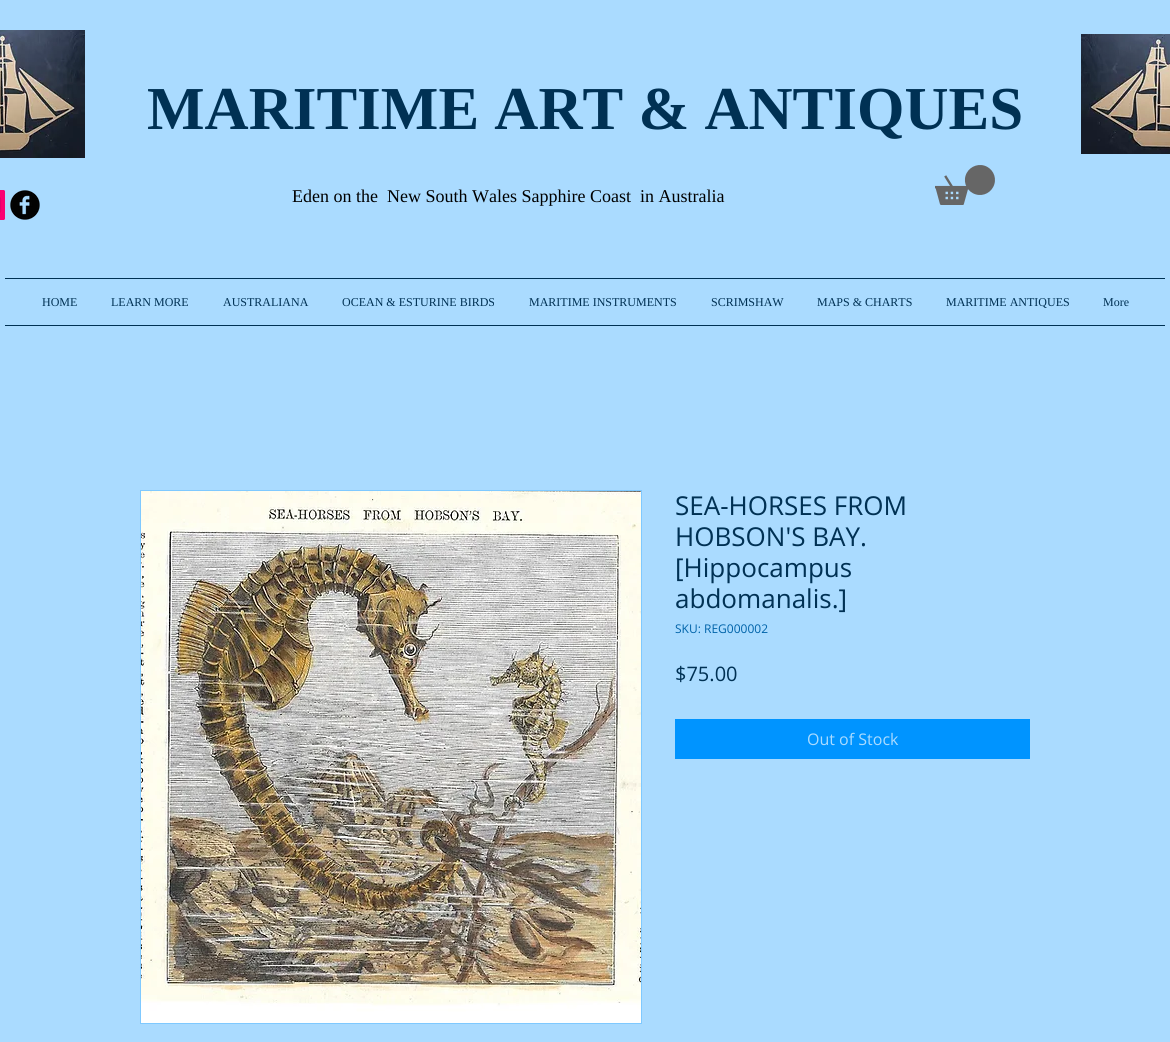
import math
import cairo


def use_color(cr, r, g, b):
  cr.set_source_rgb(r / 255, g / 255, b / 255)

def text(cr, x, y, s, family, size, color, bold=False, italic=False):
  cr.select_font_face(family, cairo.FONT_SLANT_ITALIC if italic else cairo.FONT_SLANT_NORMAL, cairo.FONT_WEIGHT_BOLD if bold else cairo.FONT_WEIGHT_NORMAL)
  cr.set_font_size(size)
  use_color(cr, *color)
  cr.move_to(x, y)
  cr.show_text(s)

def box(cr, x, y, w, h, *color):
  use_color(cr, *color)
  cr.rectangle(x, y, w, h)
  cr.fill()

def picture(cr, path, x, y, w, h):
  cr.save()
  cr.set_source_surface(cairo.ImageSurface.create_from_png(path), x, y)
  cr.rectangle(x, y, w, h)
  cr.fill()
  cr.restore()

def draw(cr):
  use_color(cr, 170, 219, 255)
  cr.paint()
  picture(cr, "img_01.png", 0, 30, 85, 128)
  picture(cr, "img_02.png", 1081, 34, 89, 120)
  picture(cr, "img_03.png", 0, 190, 5, 30)
  picture(cr, "img_04.png", 10, 190, 30, 30)
  picture(cr, "img_05.png", 935, 165, 60, 40)
  box(cr, 5, 278, 1160, 1, 0, 49, 84)
  box(cr, 5, 325, 1160, 1, 0, 49, 84)
  cr.rectangle(140.5, 490.5, 501, 533)
  use_color(cr, 127, 201, 255)
  cr.set_line_width(1)
  cr.stroke()
  picture(cr, "img_06.png", 141, 491, 500, 532)
  box(cr, 675, 719, 355, 40, 0, 148, 255)
  text(cr, 147, 129, "MARITIME ART & ANTIQUES", "Liberation Serif", 61, (0, 49, 84), bold=True)
  text(cr, 292, 202, "Eden on the  New South Wales Sapphire Coast  in Australia", "Liberation Serif", 18, (0, 0, 0))
  text(cr, 42, 306, "HOME", "Liberation Serif", 12, (0, 49, 84))
  text(cr, 111, 306, "LEARN MORE", "Liberation Serif", 12, (0, 49, 84))
  text(cr, 223, 306, "AUSTRALIANA", "Liberation Serif", 12, (0, 49, 84))
  text(cr, 342, 306, "OCEAN & ESTURINE BIRDS", "Liberation Serif", 12, (0, 49, 84))
  text(cr, 529, 306, "MARITIME INSTRUMENTS", "Liberation Serif", 12, (0, 49, 84))
  text(cr, 711, 306, "SCRIMSHAW", "Liberation Serif", 12, (0, 49, 84))
  text(cr, 817, 306, "MAPS & CHARTS", "Liberation Serif", 12, (0, 49, 84))
  text(cr, 946, 306, "MARITIME ANTIQUES", "Liberation Serif", 12, (0, 49, 84))
  text(cr, 1103, 306, "More", "Liberation Serif", 12, (0, 49, 84))
  text(cr, 675, 515, "SEA-HORSES FROM", "Open Sans", 26, (0, 49, 84))
  text(cr, 675, 546, "HOBSON'S BAY.", "Open Sans", 26, (0, 49, 84))
  text(cr, 675, 577, "[Hippocampus", "Open Sans", 26, (0, 49, 84))
  text(cr, 675, 608, "abdomanalis.]", "Open Sans", 26, (0, 49, 84))
  text(cr, 675, 633, "SKU: REG000002", "Open Sans", 12, (0, 99, 169))
  text(cr, 675, 681, "$75.00", "Open Sans", 20, (0, 49, 84))
  text(cr, 807, 745, "Out of Stock", "Open Sans", 16, (170, 219, 255))


surface = cairo.ImageSurface(cairo.FORMAT_RGB24, 1170, 1042)
cr = cairo.Context(surface)
options = cairo.FontOptions()
options.set_hint_metrics(cairo.HINT_METRICS_OFF)
options.set_hint_style(cairo.HINT_STYLE_NONE)
cr.set_font_options(options)
cr.set_miter_limit(4)
draw(cr)
surface.write_to_png("out.png")
